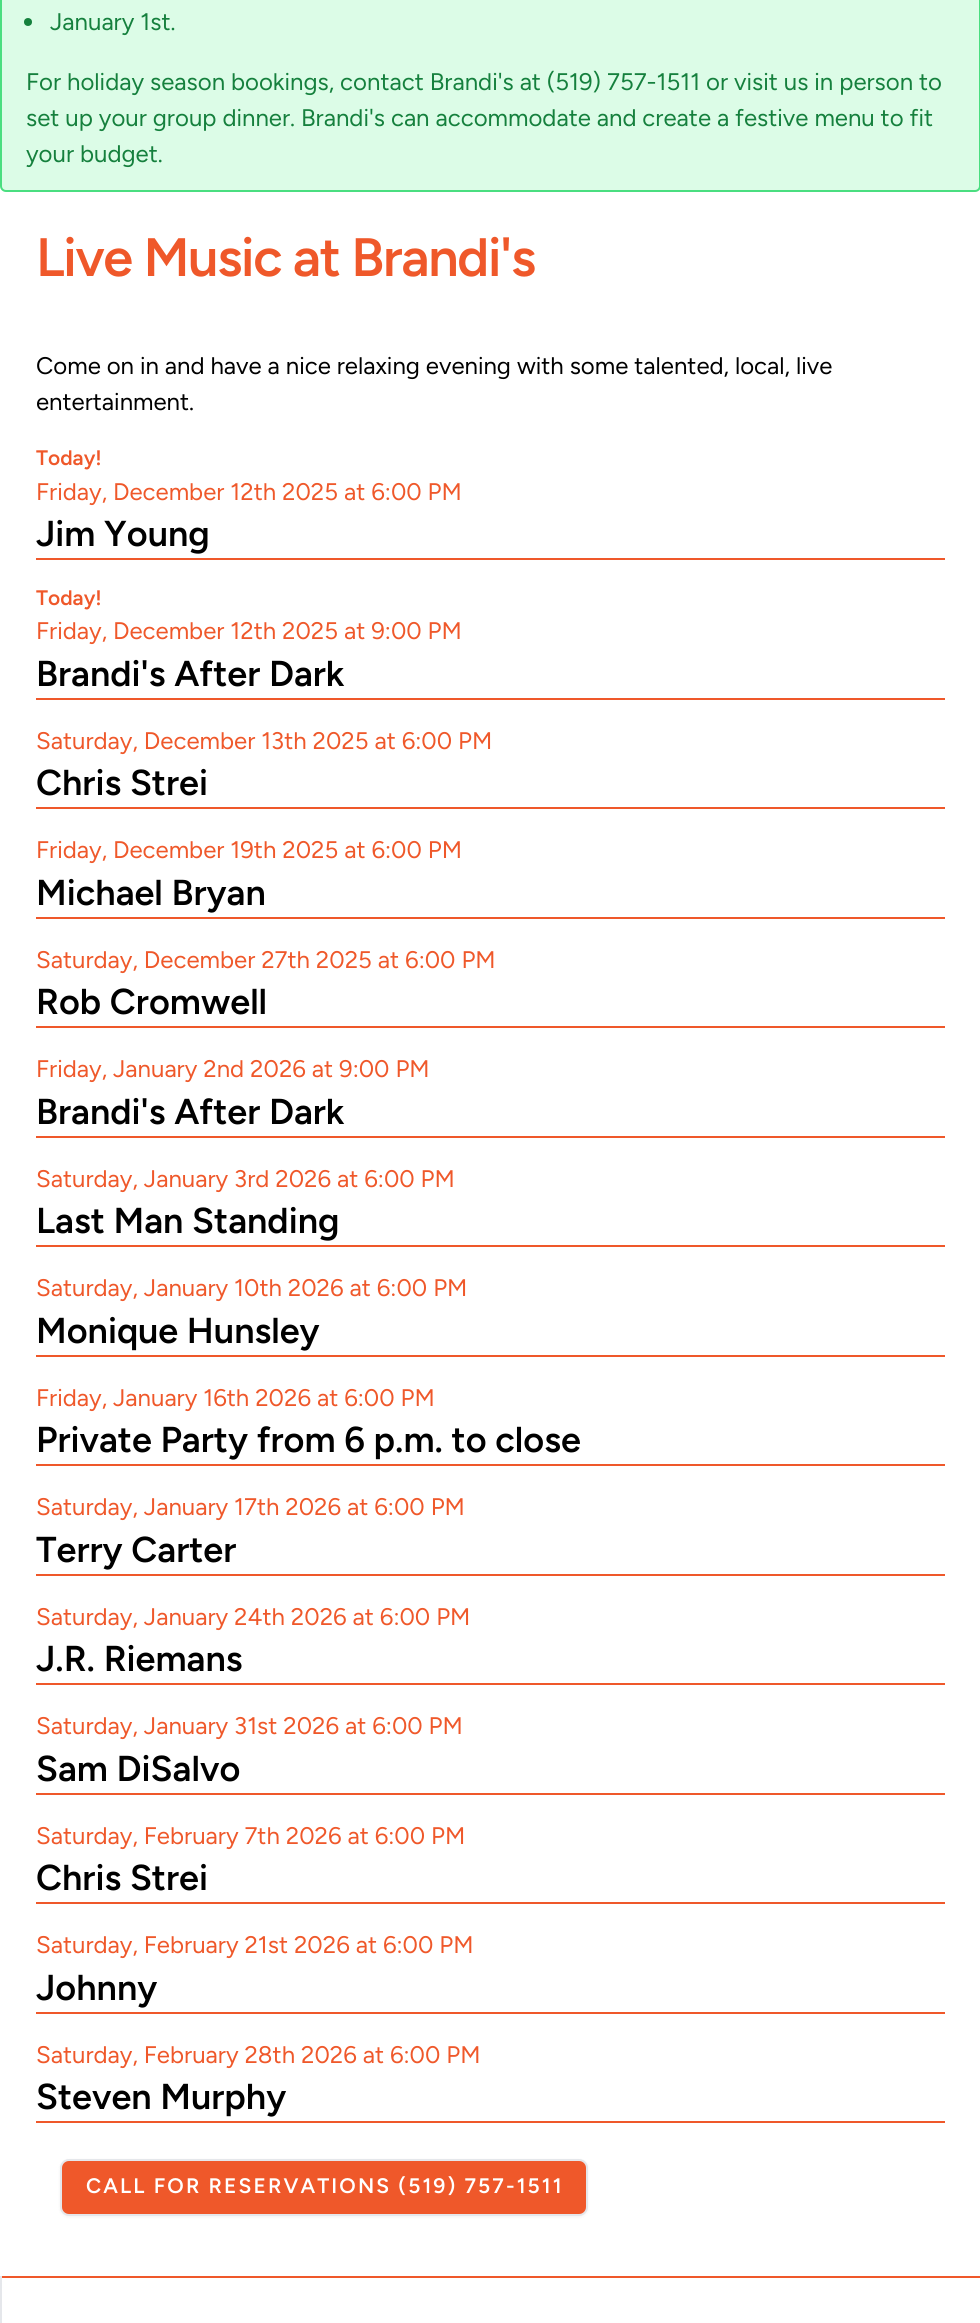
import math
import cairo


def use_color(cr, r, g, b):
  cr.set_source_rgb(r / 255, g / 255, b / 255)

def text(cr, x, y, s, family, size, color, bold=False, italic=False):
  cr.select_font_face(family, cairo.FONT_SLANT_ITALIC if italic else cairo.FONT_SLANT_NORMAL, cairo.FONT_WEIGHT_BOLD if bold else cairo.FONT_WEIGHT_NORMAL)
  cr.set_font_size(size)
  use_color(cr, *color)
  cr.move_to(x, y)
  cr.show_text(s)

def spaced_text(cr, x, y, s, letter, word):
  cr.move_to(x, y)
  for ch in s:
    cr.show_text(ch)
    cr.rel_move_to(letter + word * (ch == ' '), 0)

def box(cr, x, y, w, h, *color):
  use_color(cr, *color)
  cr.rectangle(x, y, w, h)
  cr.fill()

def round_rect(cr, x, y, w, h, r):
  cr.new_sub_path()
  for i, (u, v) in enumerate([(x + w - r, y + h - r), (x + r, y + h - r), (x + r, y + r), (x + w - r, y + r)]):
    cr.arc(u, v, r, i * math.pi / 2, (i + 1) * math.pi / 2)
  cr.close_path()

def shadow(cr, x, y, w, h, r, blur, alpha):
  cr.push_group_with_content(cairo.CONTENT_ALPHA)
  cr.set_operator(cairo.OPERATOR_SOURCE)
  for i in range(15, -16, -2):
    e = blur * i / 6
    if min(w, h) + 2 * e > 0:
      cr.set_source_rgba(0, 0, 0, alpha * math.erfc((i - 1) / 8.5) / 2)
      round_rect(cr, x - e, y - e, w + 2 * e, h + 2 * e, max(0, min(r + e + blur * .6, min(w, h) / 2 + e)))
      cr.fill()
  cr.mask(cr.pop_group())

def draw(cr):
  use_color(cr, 255, 255, 255)
  cr.paint()
  use_color(cr, 220, 252, 231)
  round_rect(cr, 1, -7, 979, 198, 5)
  cr.fill_preserve()
  use_color(cr, 74, 222, 128)
  cr.stroke()
  use_color(cr, 21, 128, 61)
  cr.arc(28, 22, 4, 0, 2 * math.pi)
  cr.fill()
  box(cr, 36, 558, 909, 2, 239, 88, 42)
  box(cr, 36, 698, 909, 2, 239, 88, 42)
  box(cr, 36, 807, 909, 2, 239, 88, 42)
  box(cr, 36, 917, 909, 2, 239, 88, 42)
  box(cr, 36, 1026, 909, 2, 239, 88, 42)
  box(cr, 36, 1136, 909, 2, 239, 88, 42)
  box(cr, 36, 1245, 909, 2, 239, 88, 42)
  box(cr, 36, 1355, 909, 2, 239, 88, 42)
  box(cr, 36, 1464, 909, 2, 239, 88, 42)
  box(cr, 36, 1574, 909, 2, 239, 88, 42)
  box(cr, 36, 1683, 909, 2, 239, 88, 42)
  box(cr, 36, 1793, 909, 2, 239, 88, 42)
  box(cr, 36, 1902, 909, 2, 239, 88, 42)
  box(cr, 36, 2012, 909, 2, 239, 88, 42)
  box(cr, 36, 2121, 909, 2, 239, 88, 42)
  use_color(cr, 0, 0, 0)
  shadow(cr, 60, 2160, 528, 57, 9, 1.5, 0.05)
  use_color(cr, 239, 88, 42)
  round_rect(cr, 61, 2160, 526, 55, 8)
  cr.fill_preserve()
  use_color(cr, 229, 231, 235)
  cr.stroke()
  box(cr, 0, 2276, 980, 2, 239, 88, 42)
  box(cr, 0, 2276, 2, 47, 229, 231, 235)
  text(cr, 50, 30, "January 1st.", "Figtree Light", 24, (21, 128, 61))
  text(cr, 26, 90, "For holiday season bookings, contact Brandi's at (519) 757-1511 or visit us in person to", "Figtree Light", 24, (21, 128, 61))
  text(cr, 26, 126, "set up your group dinner. Brandi's can accommodate and create a festive menu to fit", "Figtree Light", 24, (21, 128, 61))
  text(cr, 26, 162, "your budget.", "Figtree Light", 24, (21, 128, 61))
  cr.select_font_face("Figtree SemiBold")
  cr.set_font_size(54)
  use_color(cr, 239, 88, 42)
  spaced_text(cr, 36, 276, "Live Music at Brandi's", -1.35, 0)
  text(cr, 36, 374, "Come on in and have a nice relaxing evening with some talented, local, live", "Figtree Light", 24, (0, 0, 0))
  text(cr, 36, 410, "entertainment.", "Figtree Light", 24, (0, 0, 0))
  text(cr, 36, 465, "Today!", "Figtree SemiBold", 21, (239, 88, 42))
  text(cr, 36, 500, "Friday, December 12th 2025 at 6:00 PM", "Figtree Light", 24, (239, 88, 42))
  text(cr, 36, 546, "Jim Young", "Figtree SemiBold", 36, (0, 0, 0))
  text(cr, 36, 605, "Today!", "Figtree SemiBold", 21, (239, 88, 42))
  text(cr, 36, 639, "Friday, December 12th 2025 at 9:00 PM", "Figtree Light", 24, (239, 88, 42))
  text(cr, 36, 686, "Brandi's After Dark", "Figtree SemiBold", 36, (0, 0, 0))
  text(cr, 36, 749, "Saturday, December 13th 2025 at 6:00 PM", "Figtree Light", 24, (239, 88, 42))
  text(cr, 36, 795, "Chris Strei", "Figtree SemiBold", 36, (0, 0, 0))
  text(cr, 36, 858, "Friday, December 19th 2025 at 6:00 PM", "Figtree Light", 24, (239, 88, 42))
  text(cr, 36, 905, "Michael Bryan", "Figtree SemiBold", 36, (0, 0, 0))
  text(cr, 36, 968, "Saturday, December 27th 2025 at 6:00 PM", "Figtree Light", 24, (239, 88, 42))
  text(cr, 36, 1014, "Rob Cromwell", "Figtree SemiBold", 36, (0, 0, 0))
  text(cr, 36, 1077, "Friday, January 2nd 2026 at 9:00 PM", "Figtree Light", 24, (239, 88, 42))
  text(cr, 36, 1124, "Brandi's After Dark", "Figtree SemiBold", 36, (0, 0, 0))
  text(cr, 36, 1187, "Saturday, January 3rd 2026 at 6:00 PM", "Figtree Light", 24, (239, 88, 42))
  text(cr, 36, 1233, "Last Man Standing", "Figtree SemiBold", 36, (0, 0, 0))
  text(cr, 36, 1296, "Saturday, January 10th 2026 at 6:00 PM", "Figtree Light", 24, (239, 88, 42))
  text(cr, 36, 1343, "Monique Hunsley", "Figtree SemiBold", 36, (0, 0, 0))
  text(cr, 36, 1406, "Friday, January 16th 2026 at 6:00 PM", "Figtree Light", 24, (239, 88, 42))
  text(cr, 36, 1452, "Private Party from 6 p.m. to close", "Figtree SemiBold", 36, (0, 0, 0))
  text(cr, 36, 1515, "Saturday, January 17th 2026 at 6:00 PM", "Figtree Light", 24, (239, 88, 42))
  text(cr, 36, 1562, "Terry Carter", "Figtree SemiBold", 36, (0, 0, 0))
  text(cr, 36, 1625, "Saturday, January 24th 2026 at 6:00 PM", "Figtree Light", 24, (239, 88, 42))
  text(cr, 36, 1671, "J.R. Riemans", "Figtree SemiBold", 36, (0, 0, 0))
  text(cr, 36, 1734, "Saturday, January 31st 2026 at 6:00 PM", "Figtree Light", 24, (239, 88, 42))
  text(cr, 36, 1781, "Sam DiSalvo", "Figtree SemiBold", 36, (0, 0, 0))
  text(cr, 36, 1844, "Saturday, February 7th 2026 at 6:00 PM", "Figtree Light", 24, (239, 88, 42))
  text(cr, 36, 1890, "Chris Strei", "Figtree SemiBold", 36, (0, 0, 0))
  text(cr, 36, 1953, "Saturday, February 21st 2026 at 6:00 PM", "Figtree Light", 24, (239, 88, 42))
  text(cr, 36, 2000, "Johnny", "Figtree SemiBold", 36, (0, 0, 0))
  text(cr, 36, 2063, "Saturday, February 28th 2026 at 6:00 PM", "Figtree Light", 24, (239, 88, 42))
  text(cr, 36, 2109, "Steven Murphy", "Figtree SemiBold", 36, (0, 0, 0))
  cr.set_font_size(21)
  use_color(cr, 255, 255, 255)
  spaced_text(cr, 86, 2193, "CALL FOR RESERVATIONS (519) 757-1511", 2.1, 0)


surface = cairo.ImageSurface(cairo.FORMAT_RGB24, 980, 2323)
cr = cairo.Context(surface)
options = cairo.FontOptions()
options.set_hint_metrics(cairo.HINT_METRICS_OFF)
options.set_hint_style(cairo.HINT_STYLE_NONE)
cr.set_font_options(options)
cr.set_miter_limit(4)
draw(cr)
surface.write_to_png("out.png")
